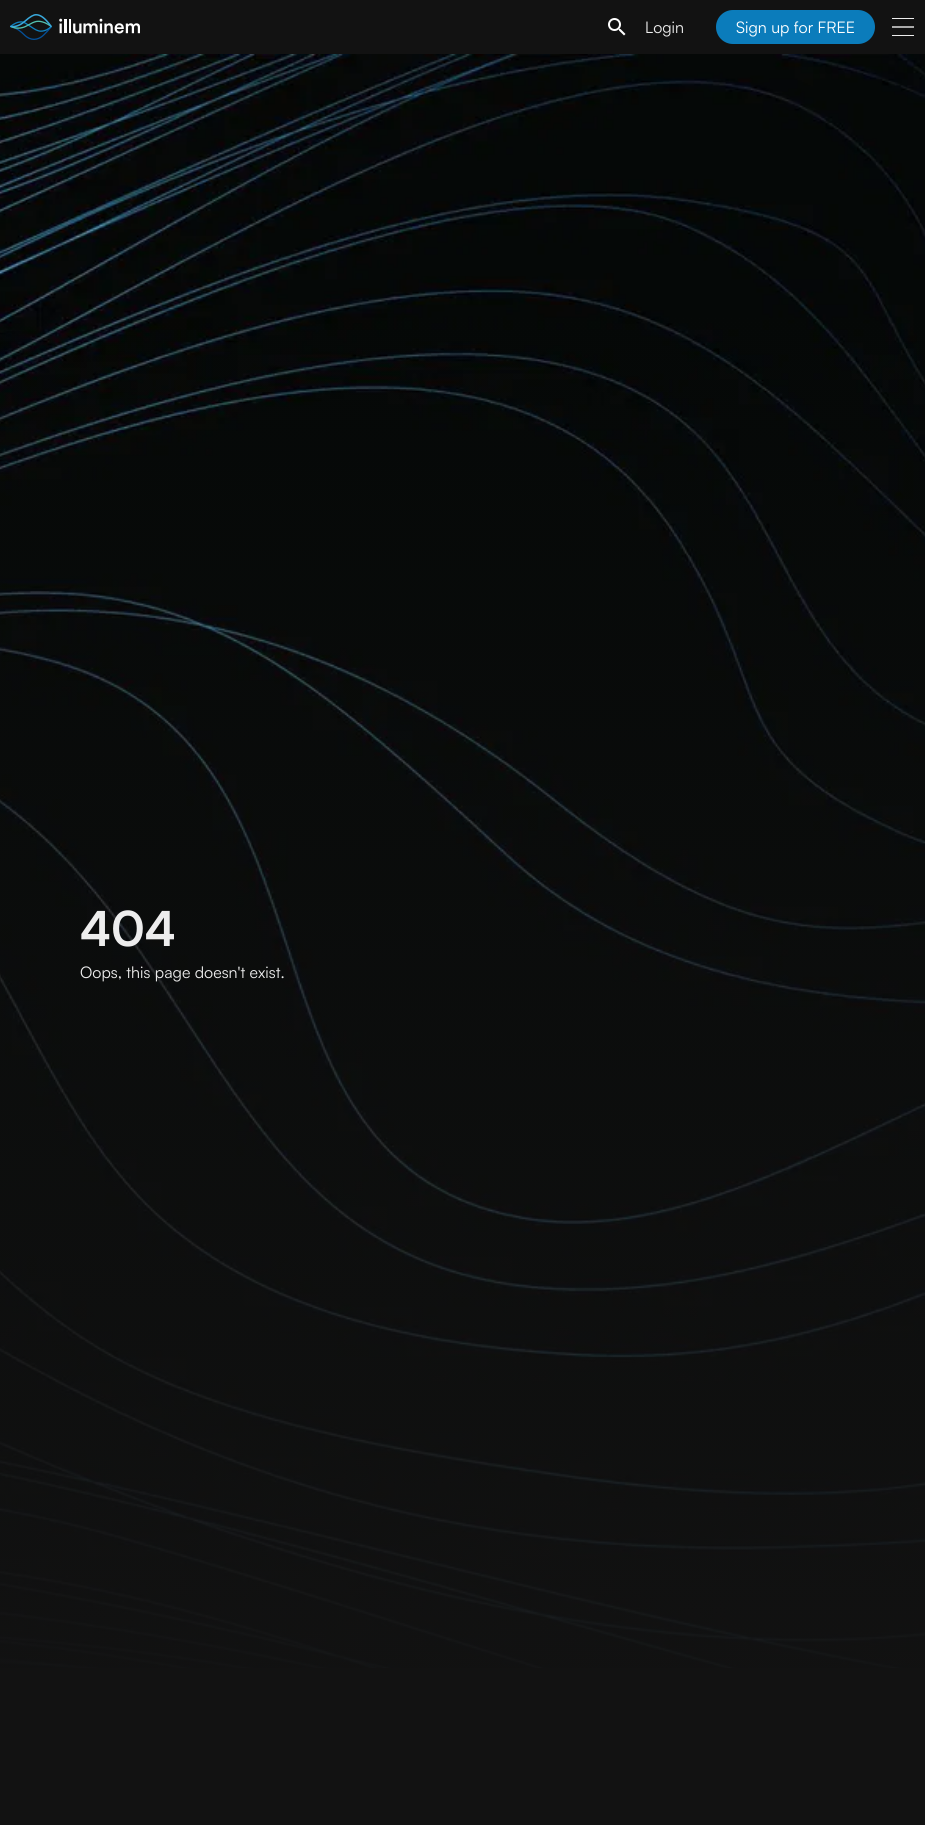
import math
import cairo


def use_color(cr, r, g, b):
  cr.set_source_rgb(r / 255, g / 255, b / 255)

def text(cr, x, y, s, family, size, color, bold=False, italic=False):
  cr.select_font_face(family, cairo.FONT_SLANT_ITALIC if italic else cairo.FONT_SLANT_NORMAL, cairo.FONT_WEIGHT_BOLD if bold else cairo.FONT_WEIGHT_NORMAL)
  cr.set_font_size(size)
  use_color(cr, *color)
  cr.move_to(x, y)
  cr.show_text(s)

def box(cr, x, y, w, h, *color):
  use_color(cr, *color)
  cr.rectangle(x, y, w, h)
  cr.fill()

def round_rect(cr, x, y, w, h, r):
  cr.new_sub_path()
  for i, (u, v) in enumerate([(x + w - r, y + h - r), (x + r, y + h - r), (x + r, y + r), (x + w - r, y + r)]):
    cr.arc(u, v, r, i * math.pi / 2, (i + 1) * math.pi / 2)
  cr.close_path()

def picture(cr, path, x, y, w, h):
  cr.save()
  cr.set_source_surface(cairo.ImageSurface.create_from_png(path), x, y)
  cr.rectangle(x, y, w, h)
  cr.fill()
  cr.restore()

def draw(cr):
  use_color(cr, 18, 18, 18)
  cr.paint()
  picture(cr, "img_01.png", 10, 14, 130, 26)
  picture(cr, "img_02.png", 608, 18, 18, 18)
  use_color(cr, 11, 124, 187)
  round_rect(cr, 716, 10, 159, 34, 17)
  cr.fill()
  cr.new_path()
  cr.move_to(892, 27)
  cr.line_to(914, 27)
  use_color(cr, 237, 237, 237)
  cr.set_line_width(1.4)
  cr.stroke()
  box(cr, 892, 18, 22, 1, 237, 237, 237)
  box(cr, 892, 35, 22, 1, 237, 237, 237)
  picture(cr, "img_03.png", 0, 54, 925, 1614)
  text(cr, 645, 33, "Login", "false", 16, (237, 237, 237))
  text(cr, 736, 33, "Sign up for FREE", "false", 16, (255, 255, 255))
  text(cr, 80, 946, "404", "false", 48, (237, 237, 237), bold=True)
  text(cr, 80, 978, "Oops, this page doesn't exist.", "false", 16, (237, 237, 237))


surface = cairo.ImageSurface(cairo.FORMAT_RGB24, 925, 1825)
cr = cairo.Context(surface)
options = cairo.FontOptions()
options.set_hint_metrics(cairo.HINT_METRICS_OFF)
options.set_hint_style(cairo.HINT_STYLE_NONE)
cr.set_font_options(options)
cr.set_miter_limit(4)
draw(cr)
surface.write_to_png("out.png")
